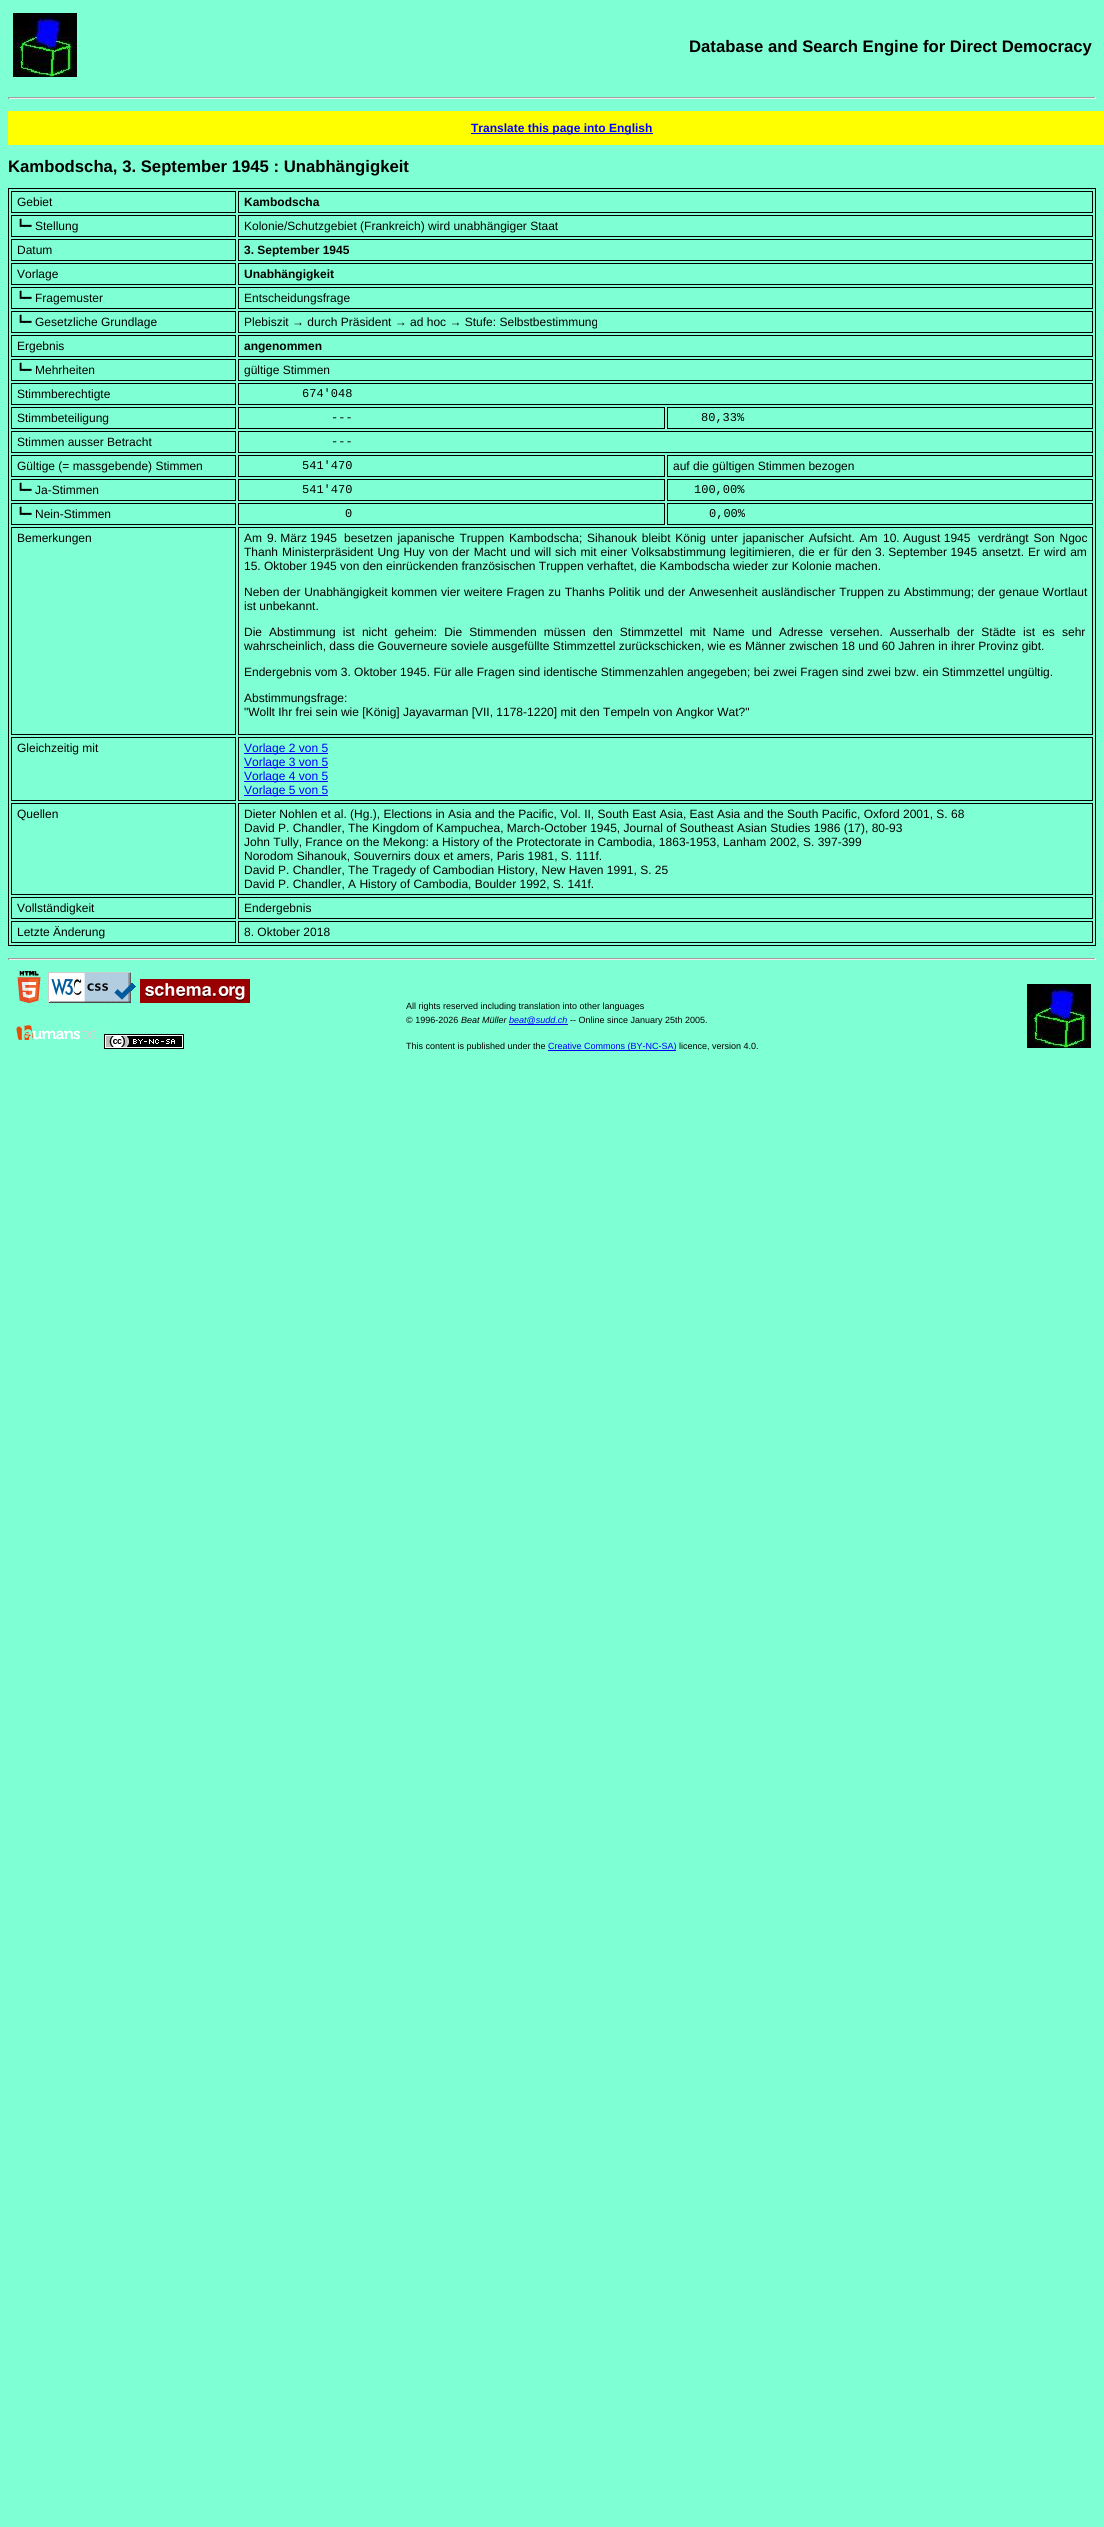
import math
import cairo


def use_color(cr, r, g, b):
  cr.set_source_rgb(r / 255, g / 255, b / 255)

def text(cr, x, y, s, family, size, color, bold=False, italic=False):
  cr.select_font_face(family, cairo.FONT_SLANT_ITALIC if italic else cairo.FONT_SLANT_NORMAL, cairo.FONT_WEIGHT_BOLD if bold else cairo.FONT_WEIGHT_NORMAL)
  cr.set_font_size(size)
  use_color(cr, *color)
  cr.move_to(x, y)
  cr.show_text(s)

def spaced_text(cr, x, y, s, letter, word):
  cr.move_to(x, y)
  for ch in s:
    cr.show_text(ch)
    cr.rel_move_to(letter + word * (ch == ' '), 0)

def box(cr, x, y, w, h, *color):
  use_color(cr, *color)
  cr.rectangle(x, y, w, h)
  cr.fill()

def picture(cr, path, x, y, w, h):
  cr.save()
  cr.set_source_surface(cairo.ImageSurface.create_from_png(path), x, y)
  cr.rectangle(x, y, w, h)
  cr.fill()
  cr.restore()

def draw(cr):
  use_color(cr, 127, 255, 212)
  cr.paint()
  picture(cr, "img_01.png", 13, 13, 64, 64)
  box(cr, 8, 97, 1088, 1, 159, 159, 159)
  box(cr, 1095, 97, 1, 2, 238, 238, 238)
  box(cr, 8, 98, 1088, 1, 238, 238, 238)
  box(cr, 8, 97, 1, 2, 159, 159, 159)
  box(cr, 8, 111, 1096, 34, 255, 255, 0)
  box(cr, 471, 133, 182, 1, 0, 0, 255)
  cr.rectangle(8.5, 188.5, 1087, 757)
  use_color(cr, 0, 0, 0)
  cr.set_line_width(1)
  cr.stroke()
  cr.rectangle(11.5, 191.5, 224, 21)
  cr.stroke()
  cr.rectangle(238.5, 191.5, 854, 21)
  cr.stroke()
  cr.rectangle(11.5, 215.5, 224, 21)
  cr.stroke()
  cr.rectangle(238.5, 215.5, 854, 21)
  cr.stroke()
  cr.rectangle(11.5, 239.5, 224, 21)
  cr.stroke()
  cr.rectangle(238.5, 239.5, 854, 21)
  cr.stroke()
  cr.rectangle(11.5, 263.5, 224, 21)
  cr.stroke()
  cr.rectangle(238.5, 263.5, 854, 21)
  cr.stroke()
  cr.rectangle(11.5, 287.5, 224, 21)
  cr.stroke()
  cr.rectangle(238.5, 287.5, 854, 21)
  cr.stroke()
  cr.rectangle(11.5, 311.5, 224, 21)
  cr.stroke()
  cr.rectangle(238.5, 311.5, 854, 21)
  cr.stroke()
  cr.rectangle(11.5, 335.5, 224, 21)
  cr.stroke()
  cr.rectangle(238.5, 335.5, 854, 21)
  cr.stroke()
  cr.rectangle(11.5, 359.5, 224, 21)
  cr.stroke()
  cr.rectangle(238.5, 359.5, 854, 21)
  cr.stroke()
  cr.rectangle(11.5, 383.5, 224, 21)
  cr.stroke()
  cr.rectangle(238.5, 383.5, 854, 21)
  cr.stroke()
  cr.rectangle(11.5, 407.5, 224, 21)
  cr.stroke()
  cr.rectangle(238.5, 407.5, 426, 21)
  cr.stroke()
  cr.rectangle(667.5, 407.5, 425, 21)
  cr.stroke()
  cr.rectangle(11.5, 431.5, 224, 21)
  cr.stroke()
  cr.rectangle(238.5, 431.5, 854, 21)
  cr.stroke()
  cr.rectangle(11.5, 455.5, 224, 21)
  cr.stroke()
  cr.rectangle(238.5, 455.5, 426, 21)
  cr.stroke()
  cr.rectangle(667.5, 455.5, 425, 21)
  cr.stroke()
  cr.rectangle(11.5, 479.5, 224, 21)
  cr.stroke()
  cr.rectangle(238.5, 479.5, 426, 21)
  cr.stroke()
  cr.rectangle(667.5, 479.5, 425, 21)
  cr.stroke()
  cr.rectangle(11.5, 503.5, 224, 21)
  cr.stroke()
  cr.rectangle(238.5, 503.5, 426, 21)
  cr.stroke()
  cr.rectangle(667.5, 503.5, 425, 21)
  cr.stroke()
  cr.rectangle(11.5, 527.5, 224, 207)
  cr.stroke()
  cr.rectangle(238.5, 527.5, 854, 207)
  cr.stroke()
  cr.rectangle(11.5, 737.5, 224, 63)
  cr.stroke()
  cr.rectangle(238.5, 737.5, 854, 63)
  cr.stroke()
  box(cr, 244, 753, 84, 1, 0, 0, 255)
  box(cr, 244, 767, 84, 1, 0, 0, 255)
  box(cr, 244, 781, 84, 1, 0, 0, 255)
  box(cr, 244, 795, 84, 1, 0, 0, 255)
  cr.rectangle(11.5, 803.5, 224, 91)
  use_color(cr, 0, 0, 0)
  cr.stroke()
  cr.rectangle(238.5, 803.5, 854, 91)
  cr.stroke()
  cr.rectangle(11.5, 897.5, 224, 21)
  cr.stroke()
  cr.rectangle(238.5, 897.5, 854, 21)
  cr.stroke()
  cr.rectangle(11.5, 921.5, 224, 21)
  cr.stroke()
  cr.rectangle(238.5, 921.5, 854, 21)
  cr.stroke()
  box(cr, 8, 958, 1088, 1, 159, 159, 159)
  box(cr, 1095, 958, 1, 2, 238, 238, 238)
  box(cr, 8, 959, 1088, 1, 238, 238, 238)
  box(cr, 8, 958, 1, 2, 159, 159, 159)
  picture(cr, "img_02.png", 17, 971, 24, 32)
  picture(cr, "img_03.png", 48, 972, 88, 31)
  picture(cr, "img_04.png", 140, 979, 110, 24)
  picture(cr, "img_05.png", 16, 1025, 81, 15)
  picture(cr, "img_06.png", 104, 1034, 80, 15)
  box(cr, 509, 1024, 59, 1, 0, 0, 255)
  box(cr, 548, 1050, 128, 1, 0, 0, 255)
  picture(cr, "img_01.png", 1027, 984, 64, 64)
  text(cr, 689, 52, "Database and Search Engine for Direct Democracy", "Liberation Sans", 16.7, (0, 0, 0), bold=True)
  text(cr, 471, 132, "Translate this page into English", "Liberation Sans", 12, (0, 0, 255), bold=True)
  text(cr, 8, 172, "Kambodscha, 3. September 1945 : Unabhängigkeit", "Liberation Sans", 16.7, (0, 0, 0), bold=True)
  text(cr, 17, 206, "Gebiet", "Liberation Sans", 12, (0, 0, 0))
  text(cr, 244, 206, "Kambodscha", "Liberation Sans", 12, (0, 0, 0), bold=True)
  text(cr, 17, 230, "┗━", "DejaVu Sans", 12, (0, 0, 0))
  text(cr, 35, 230, "Stellung", "Liberation Sans", 12, (0, 0, 0))
  text(cr, 244, 230, "Kolonie/Schutzgebiet (Frankreich) wird unabhängiger Staat", "Liberation Sans", 12, (0, 0, 0))
  text(cr, 17, 254, "Datum", "Liberation Sans", 12, (0, 0, 0))
  text(cr, 244, 254, "3. September 1945", "Liberation Sans", 12, (0, 0, 0), bold=True)
  text(cr, 17, 278, "Vorlage", "Liberation Sans", 12, (0, 0, 0))
  text(cr, 244, 278, "Unabhängigkeit", "Liberation Sans", 12, (0, 0, 0), bold=True)
  text(cr, 17, 302, "┗━", "DejaVu Sans", 12, (0, 0, 0))
  text(cr, 35, 302, "Fragemuster", "Liberation Sans", 12, (0, 0, 0))
  text(cr, 244, 302, "Entscheidungsfrage", "Liberation Sans", 12, (0, 0, 0))
  text(cr, 17, 326, "┗━", "DejaVu Sans", 12, (0, 0, 0))
  text(cr, 35, 326, "Gesetzliche Grundlage", "Liberation Sans", 12, (0, 0, 0))
  text(cr, 244, 326, "Plebiszit → durch Präsident → ad hoc → Stufe: Selbstbestimmung", "Liberation Sans", 12, (0, 0, 0))
  text(cr, 17, 350, "Ergebnis", "Liberation Sans", 12, (0, 0, 0))
  text(cr, 244, 350, "angenommen", "Liberation Sans", 12, (0, 0, 0), bold=True)
  text(cr, 17, 374, "┗━", "DejaVu Sans", 12, (0, 0, 0))
  text(cr, 35, 374, "Mehrheiten", "Liberation Sans", 12, (0, 0, 0))
  text(cr, 244, 374, "gültige Stimmen", "Liberation Sans", 12, (0, 0, 0))
  text(cr, 17, 398, "Stimmberechtigte", "Liberation Sans", 12, (0, 0, 0))
  text(cr, 302, 397, "674'048", "Liberation Mono", 12, (0, 0, 0))
  text(cr, 17, 422, "Stimmbeteiligung", "Liberation Sans", 12, (0, 0, 0))
  text(cr, 331, 421, "---", "Liberation Mono", 12, (0, 0, 0))
  text(cr, 701, 421, "80,33%", "Liberation Mono", 12, (0, 0, 0))
  text(cr, 17, 446, "Stimmen ausser Betracht", "Liberation Sans", 12, (0, 0, 0))
  text(cr, 331, 445, "---", "Liberation Mono", 12, (0, 0, 0))
  text(cr, 17, 470, "Gültige (= massgebende) Stimmen", "Liberation Sans", 12, (0, 0, 0))
  text(cr, 302, 469, "541'470", "Liberation Mono", 12, (0, 0, 0))
  text(cr, 673, 470, "auf die gültigen Stimmen bezogen", "Liberation Sans", 12, (0, 0, 0))
  text(cr, 17, 494, "┗━", "DejaVu Sans", 12, (0, 0, 0))
  text(cr, 35, 494, "Ja-Stimmen", "Liberation Sans", 12, (0, 0, 0))
  text(cr, 302, 493, "541'470", "Liberation Mono", 12, (0, 0, 0))
  text(cr, 694, 493, "100,00%", "Liberation Mono", 12, (0, 0, 0))
  text(cr, 17, 518, "┗━", "DejaVu Sans", 12, (0, 0, 0))
  text(cr, 35, 518, "Nein-Stimmen", "Liberation Sans", 12, (0, 0, 0))
  text(cr, 345, 517, "0", "Liberation Mono", 12, (0, 0, 0))
  text(cr, 709, 517, "0,00%", "Liberation Mono", 12, (0, 0, 0))
  text(cr, 17, 542, "Bemerkungen", "Liberation Sans", 12, (0, 0, 0))
  text(cr, 244, 542, "Am", "Liberation Sans", 12, (0, 0, 0))
  text(cr, 267, 542, "9. März 1945", "Liberation Sans", 12, (0, 0, 0))
  spaced_text(cr, 344, 542, "besetzen japanische Truppen Kambodscha; Sihanouk bleibt König unter japanischer Aufsicht. Am", 0, 1.4)
  text(cr, 883, 542, "10. August 1945", "Liberation Sans", 12, (0, 0, 0))
  spaced_text(cr, 978, 542, "verdrängt Son Ngoc", 0, 1.4)
  spaced_text(cr, 244, 556, "Thanh Ministerpräsident Ung Huy von der Macht und will sich mit einer Volksabstimmung legitimieren, die er für den", 0, 0.7)
  text(cr, 875, 556, "3. September 1945", "Liberation Sans", 12, (0, 0, 0))
  spaced_text(cr, 982, 556, "ansetzt. Er wird am", 0, 0.7)
  text(cr, 244, 570, "15. Oktober 1945 von den einrückenden französischen Truppen verhaftet, die Kambodscha wieder zur Kolonie machen.", "Liberation Sans", 12, (0, 0, 0))
  spaced_text(cr, 244, 596, "Neben der Unabhängigkeit kommen vier weitere Fragen zu Thanhs Politik und der Anwesenheit ausländischer Truppen zu Abstimmung; der genaue Wortlaut", 0, 0.4)
  text(cr, 244, 610, "ist unbekannt.", "Liberation Sans", 12, (0, 0, 0))
  spaced_text(cr, 244, 636, "Die Abstimmung ist nicht geheim: Die Stimmenden müssen den Stimmzettel mit Name und Adresse versehen. Ausserhalb der Städte ist es sehr", 0, 3.75)
  text(cr, 244, 650, "wahrscheinlich, dass die Gouverneure soviele ausgefüllte Stimmzettel zurückschicken, wie es Männer zwischen 18 und 60 Jahren in ihrer Provinz gibt.", "Liberation Sans", 12, (0, 0, 0))
  text(cr, 244, 676, "Endergebnis vom 3. Oktober 1945. Für alle Fragen sind identische Stimmenzahlen angegeben; bei zwei Fragen sind zwei bzw. ein Stimmzettel ungültig.", "Liberation Sans", 12, (0, 0, 0))
  text(cr, 244, 702, "Abstimmungsfrage:", "Liberation Sans", 12, (0, 0, 0))
  text(cr, 244, 716, "\"Wollt Ihr frei sein wie [König] Jayavarman [VII, 1178-1220] mit den Tempeln von Angkor Wat?\"", "Liberation Sans", 12, (0, 0, 0))
  text(cr, 17, 752, "Gleichzeitig mit", "Liberation Sans", 12, (0, 0, 0))
  text(cr, 244, 752, "Vorlage 2 von 5", "Liberation Sans", 12, (0, 0, 255))
  text(cr, 244, 766, "Vorlage 3 von 5", "Liberation Sans", 12, (0, 0, 255))
  text(cr, 244, 780, "Vorlage 4 von 5", "Liberation Sans", 12, (0, 0, 255))
  text(cr, 244, 794, "Vorlage 5 von 5", "Liberation Sans", 12, (0, 0, 255))
  text(cr, 17, 818, "Quellen", "Liberation Sans", 12, (0, 0, 0))
  text(cr, 244, 818, "Dieter Nohlen et al. (Hg.), Elections in Asia and the Pacific, Vol. II, South East Asia, East Asia and the South Pacific, Oxford 2001, S. 68", "Liberation Sans", 12, (0, 0, 0))
  text(cr, 244, 832, "David P. Chandler, The Kingdom of Kampuchea, March-October 1945, Journal of Southeast Asian Studies 1986 (17), 80-93", "Liberation Sans", 12, (0, 0, 0))
  text(cr, 244, 846, "John Tully, France on the Mekong: a History of the Protectorate in Cambodia, 1863-1953, Lanham 2002, S. 397-399", "Liberation Sans", 12, (0, 0, 0))
  text(cr, 244, 860, "Norodom Sihanouk, Souvernirs doux et amers, Paris 1981, S. 111f.", "Liberation Sans", 12, (0, 0, 0))
  text(cr, 244, 874, "David P. Chandler, The Tragedy of Cambodian History, New Haven 1991, S. 25", "Liberation Sans", 12, (0, 0, 0))
  text(cr, 244, 888, "David P. Chandler, A History of Cambodia, Boulder 1992, S. 141f.", "Liberation Sans", 12, (0, 0, 0))
  text(cr, 17, 912, "Vollständigkeit", "Liberation Sans", 12, (0, 0, 0))
  text(cr, 244, 912, "Endergebnis", "Liberation Sans", 12, (0, 0, 0))
  text(cr, 17, 936, "Letzte Änderung", "Liberation Sans", 12, (0, 0, 0))
  text(cr, 244, 936, "8. Oktober 2018", "Liberation Sans", 12, (0, 0, 0))
  text(cr, 406, 1009, "All rights reserved including translation into other languages", "Liberation Sans", 9, (0, 0, 0))
  text(cr, 406, 1023, "© 1996-2026", "Liberation Sans", 9, (0, 0, 0))
  text(cr, 461, 1023, "Beat Müller", "Liberation Sans", 9, (0, 0, 0), italic=True)
  text(cr, 509, 1023, "beat@sudd.ch", "Liberation Sans", 9, (0, 0, 255), italic=True)
  text(cr, 570, 1023, "-- Online since January 25th 2005.", "Liberation Sans", 9, (0, 0, 0))
  text(cr, 406, 1049, "This content is published under the", "Liberation Sans", 9, (0, 0, 0))
  text(cr, 548, 1049, "Creative Commons (BY-NC-SA)", "Liberation Sans", 9, (0, 0, 255))
  text(cr, 679, 1049, "licence, version 4.0.", "Liberation Sans", 9, (0, 0, 0))


surface = cairo.ImageSurface(cairo.FORMAT_RGB24, 1104, 2527)
cr = cairo.Context(surface)
options = cairo.FontOptions()
options.set_hint_metrics(cairo.HINT_METRICS_OFF)
options.set_hint_style(cairo.HINT_STYLE_NONE)
cr.set_font_options(options)
cr.set_miter_limit(4)
draw(cr)
surface.write_to_png("out.png")
